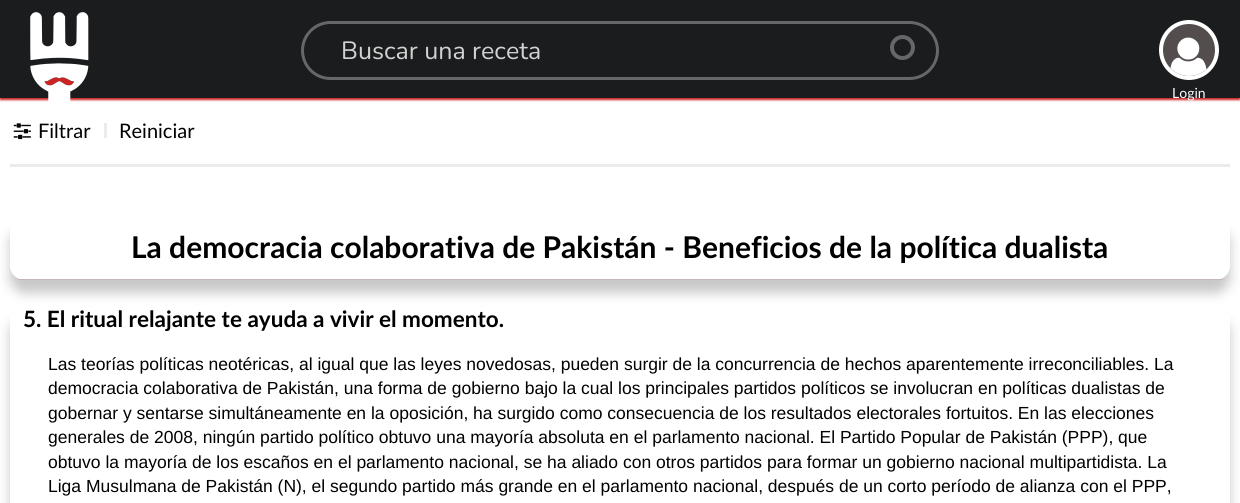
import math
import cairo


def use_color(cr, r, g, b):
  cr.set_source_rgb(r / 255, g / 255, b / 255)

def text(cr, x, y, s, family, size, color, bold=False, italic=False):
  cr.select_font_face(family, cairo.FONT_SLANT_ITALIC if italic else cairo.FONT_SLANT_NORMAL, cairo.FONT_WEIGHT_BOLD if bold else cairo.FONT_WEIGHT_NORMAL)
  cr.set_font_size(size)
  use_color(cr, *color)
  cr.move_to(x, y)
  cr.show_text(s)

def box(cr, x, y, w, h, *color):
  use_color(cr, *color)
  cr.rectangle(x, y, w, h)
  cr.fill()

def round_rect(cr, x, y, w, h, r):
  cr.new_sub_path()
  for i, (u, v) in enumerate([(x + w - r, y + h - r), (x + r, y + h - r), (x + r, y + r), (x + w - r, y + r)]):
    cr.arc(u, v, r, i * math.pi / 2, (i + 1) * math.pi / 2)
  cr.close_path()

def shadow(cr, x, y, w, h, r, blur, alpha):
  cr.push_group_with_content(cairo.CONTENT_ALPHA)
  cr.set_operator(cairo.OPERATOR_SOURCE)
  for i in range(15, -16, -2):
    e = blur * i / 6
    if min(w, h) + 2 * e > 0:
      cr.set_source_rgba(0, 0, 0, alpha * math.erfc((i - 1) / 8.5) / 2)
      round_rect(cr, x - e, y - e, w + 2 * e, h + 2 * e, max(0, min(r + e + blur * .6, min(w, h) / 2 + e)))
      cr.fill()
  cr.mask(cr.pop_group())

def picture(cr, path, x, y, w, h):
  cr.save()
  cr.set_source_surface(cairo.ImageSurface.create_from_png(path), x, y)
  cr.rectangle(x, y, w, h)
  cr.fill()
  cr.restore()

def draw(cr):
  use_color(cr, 255, 255, 255)
  cr.paint()
  use_color(cr, 204, 36, 36)
  shadow(cr, 0, 3, 1240, 97, 0, 1, 1)
  box(cr, 0, 0, 1240, 98, 27, 28, 29)
  picture(cr, "img_01.png", 30, 12, 59, 90)
  cr.arc(902.5, 47.5, 10.5, 0, 2 * math.pi)
  use_color(cr, 102, 103, 104)
  cr.set_line_width(4)
  cr.stroke()
  round_rect(cr, 302.5, 22.5, 635, 56, 28)
  cr.set_line_width(3)
  cr.stroke()
  use_color(cr, 84, 77, 77)
  cr.arc(1189, 50, 28, 0, 2 * math.pi)
  cr.fill_preserve()
  use_color(cr, 255, 255, 255)
  cr.set_line_width(4)
  cr.stroke()
  picture(cr, "img_02.png", 1170, 37, 37, 39)
  box(cr, 10, 164, 1220, 3, 235, 235, 235)
  picture(cr, "img_03.png", 13, 123, 18, 17)
  box(cr, 104, 123, 3, 15, 235, 235, 235)
  cr.save()
  cr.set_fill_rule(cairo.FILL_RULE_EVEN_ODD)
  cr.new_path()
  cr.move_to(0, 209)
  cr.line_to(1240, 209)
  cr.line_to(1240, 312)
  cr.line_to(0, 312)
  cr.close_path()
  cr.move_to(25, 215)
  cr.line_to(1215, 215)
  cr.curve_to(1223.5, 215, 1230, 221.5, 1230, 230)
  cr.line_to(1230, 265)
  cr.curve_to(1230, 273.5, 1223.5, 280, 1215, 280)
  cr.line_to(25, 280)
  cr.curve_to(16.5, 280, 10, 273.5, 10, 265)
  cr.line_to(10, 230)
  cr.curve_to(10, 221.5, 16.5, 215, 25, 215)
  cr.close_path()
  cr.clip()
  use_color(cr, 0, 0, 0)
  shadow(cr, 10, 228, 1220, 65, 15, 6, 0.22)
  cr.restore()
  box(cr, 18, 279, 1205, 1, 197, 183, 183)
  cr.save()
  cr.set_fill_rule(cairo.FILL_RULE_EVEN_ODD)
  cr.new_path()
  cr.move_to(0, 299)
  cr.line_to(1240, 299)
  cr.line_to(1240, 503)
  cr.line_to(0, 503)
  cr.close_path()
  cr.move_to(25, 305)
  cr.line_to(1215, 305)
  cr.curve_to(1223.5, 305, 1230, 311.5, 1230, 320)
  cr.line_to(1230, 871)
  cr.curve_to(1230, 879.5, 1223.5, 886, 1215, 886)
  cr.line_to(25, 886)
  cr.curve_to(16.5, 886, 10, 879.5, 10, 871)
  cr.line_to(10, 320)
  cr.curve_to(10, 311.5, 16.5, 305, 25, 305)
  cr.close_path()
  cr.clip()
  use_color(cr, 0, 0, 0)
  shadow(cr, 10, 318, 1220, 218, 15, 6, 0.22)
  cr.restore()
  text(cr, 341, 59, "Buscar una receta", "Nunito", 25, (209, 210, 210))
  text(cr, 1172, 98, "Login", "Lato", 14, (255, 255, 255))
  text(cr, 38, 138, "Filtrar", "Lato", 20, (0, 0, 0))
  text(cr, 119, 138, "Reiniciar", "Lato", 20, (0, 0, 0))
  text(cr, 131, 258, "La democracia colaborativa de Pakistán - Beneficios de la política dualista", "Lato", 30, (0, 0, 0), bold=True)
  text(cr, 23, 327, "5. El ritual relajante te ayuda a vivir el momento.", "Lato", 22.5, (0, 0, 0), bold=True)
  text(cr, 48, 370, "Las teorías políticas neotéricas, al igual que las leyes novedosas, pueden surgir de la concurrencia de hechos aparentemente irreconciliables. La", "Liberation Sans", 17.5, (0, 0, 0))
  text(cr, 48, 394, "democracia colaborativa de Pakistán, una forma de gobierno bajo la cual los principales partidos políticos se involucran en políticas dualistas de", "Liberation Sans", 17.5, (0, 0, 0))
  text(cr, 48, 419, "gobernar y sentarse simultáneamente en la oposición, ha surgido como consecuencia de los resultados electorales fortuitos. En las elecciones", "Liberation Sans", 17.5, (0, 0, 0))
  text(cr, 48, 443, "generales de 2008, ningún partido político obtuvo una mayoría absoluta en el parlamento nacional. El Partido Popular de Pakistán (PPP), que", "Liberation Sans", 17.5, (0, 0, 0))
  text(cr, 48, 468, "obtuvo la mayoría de los escaños en el parlamento nacional, se ha aliado con otros partidos para formar un gobierno nacional multipartidista. La", "Liberation Sans", 17.5, (0, 0, 0))
  text(cr, 48, 492, "Liga Musulmana de Pakistán (N), el segundo partido más grande en el parlamento nacional, después de un corto período de alianza con el PPP,", "Liberation Sans", 17.5, (0, 0, 0))


surface = cairo.ImageSurface(cairo.FORMAT_RGB24, 1240, 503)
cr = cairo.Context(surface)
options = cairo.FontOptions()
options.set_hint_metrics(cairo.HINT_METRICS_OFF)
options.set_hint_style(cairo.HINT_STYLE_NONE)
cr.set_font_options(options)
cr.set_miter_limit(4)
draw(cr)
surface.write_to_png("out.png")
